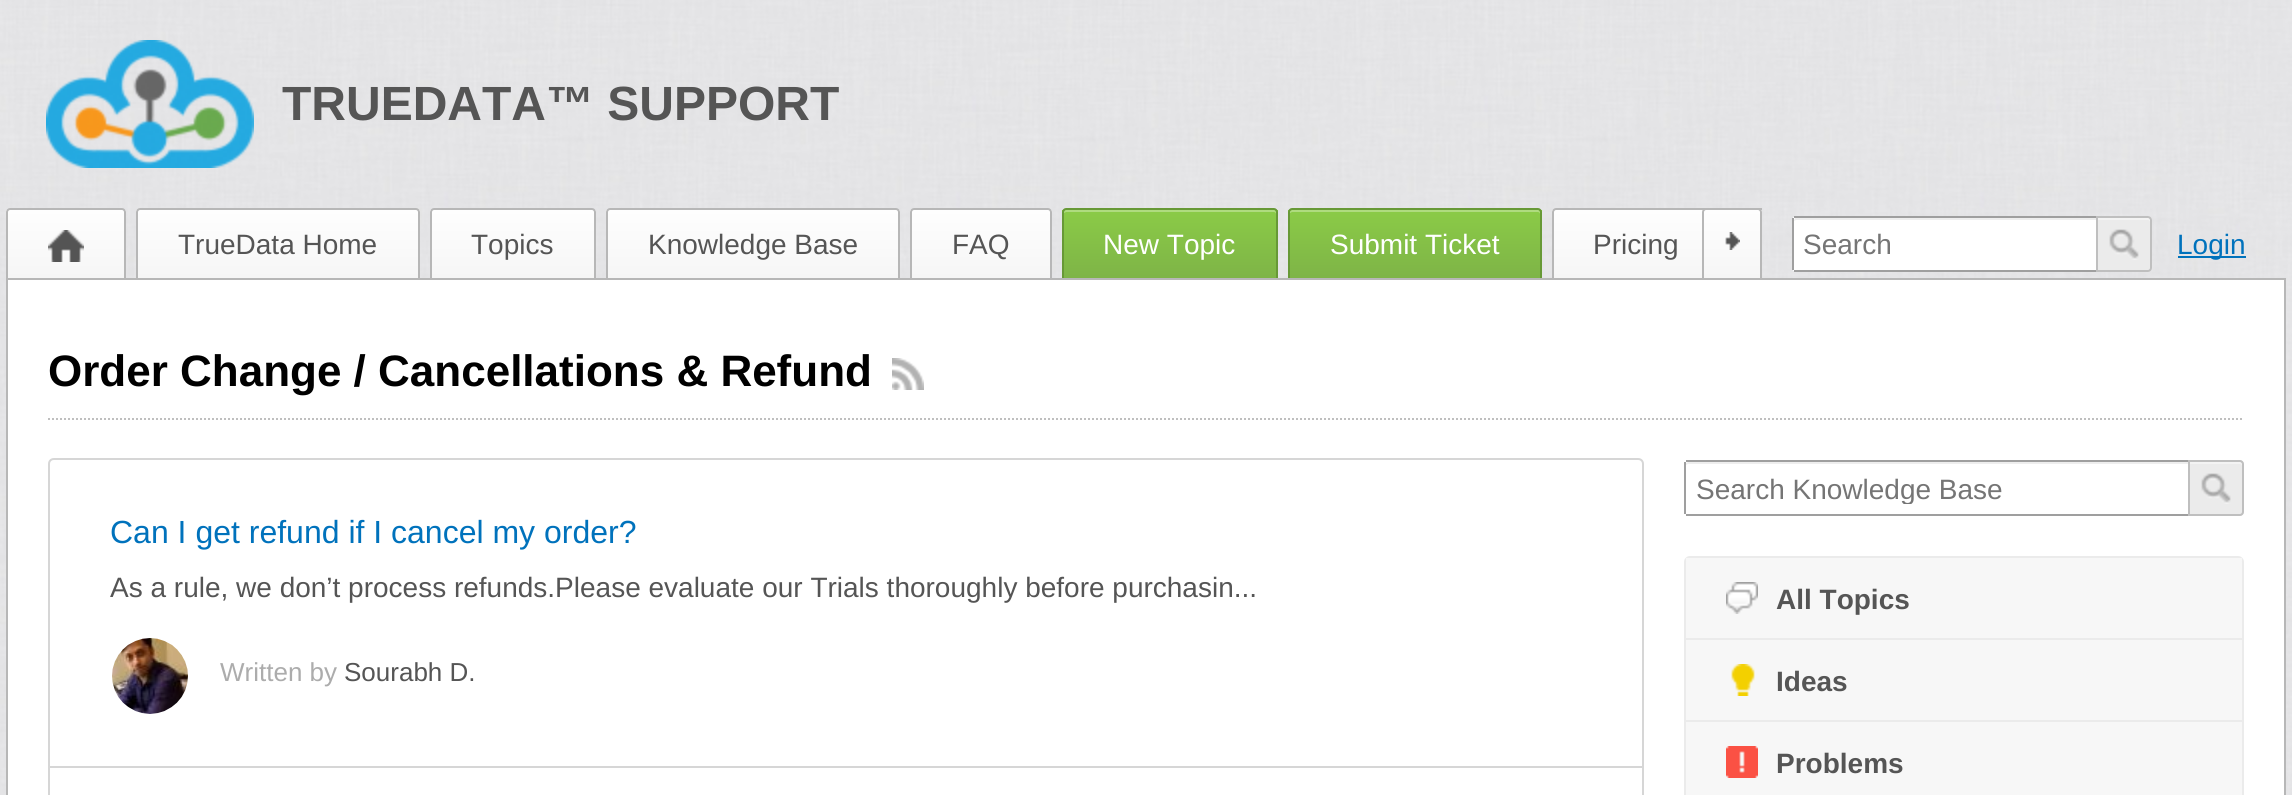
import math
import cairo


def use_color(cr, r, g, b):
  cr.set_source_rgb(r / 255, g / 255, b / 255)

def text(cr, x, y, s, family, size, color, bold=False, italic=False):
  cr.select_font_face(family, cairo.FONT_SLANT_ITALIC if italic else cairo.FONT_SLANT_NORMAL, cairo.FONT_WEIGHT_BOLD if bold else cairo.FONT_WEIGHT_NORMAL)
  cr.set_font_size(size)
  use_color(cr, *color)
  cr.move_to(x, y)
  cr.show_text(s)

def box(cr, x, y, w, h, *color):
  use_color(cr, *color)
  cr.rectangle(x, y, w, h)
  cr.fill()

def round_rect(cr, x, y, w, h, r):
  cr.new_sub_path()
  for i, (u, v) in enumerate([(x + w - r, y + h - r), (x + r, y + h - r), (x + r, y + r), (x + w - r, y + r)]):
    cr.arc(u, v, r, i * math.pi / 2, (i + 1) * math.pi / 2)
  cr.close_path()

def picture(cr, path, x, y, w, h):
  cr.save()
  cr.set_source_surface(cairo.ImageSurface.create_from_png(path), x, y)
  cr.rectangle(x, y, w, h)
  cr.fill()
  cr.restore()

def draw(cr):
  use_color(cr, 255, 255, 255)
  cr.paint()
  picture(cr, "img_01.png", 0, 0, 2292, 795)
  picture(cr, "img_02.png", 46, 40, 208, 128)
  gradient = cairo.LinearGradient(66, 210, 66, 278)
  gradient.add_color_stop_rgba(0, 0.996, 0.996, 0.996, 1)
  gradient.add_color_stop_rgba(1, 0.965, 0.965, 0.965, 1)
  cr.set_source(gradient)
  cr.rectangle(6, 210, 120, 68)
  cr.fill()
  cr.new_path()
  cr.move_to(10, 209)
  cr.line_to(122, 209)
  cr.curve_to(123.5, 209, 125, 210.5, 125, 212)
  cr.line_to(125, 279)
  cr.line_to(7, 279)
  cr.line_to(7, 212)
  cr.curve_to(7, 210.5, 8.5, 209, 10, 209)
  cr.close_path()
  use_color(cr, 183, 183, 183)
  cr.stroke()
  picture(cr, "img_03.png", 48, 230, 36, 32)
  gradient = cairo.LinearGradient(278, 210, 278, 278)
  gradient.add_color_stop_rgba(0, 0.996, 0.996, 0.996, 1)
  gradient.add_color_stop_rgba(1, 0.965, 0.965, 0.965, 1)
  cr.set_source(gradient)
  cr.rectangle(136, 210, 284, 68)
  cr.fill()
  cr.new_path()
  cr.move_to(140, 209)
  cr.line_to(416, 209)
  cr.curve_to(417.5, 209, 419, 210.5, 419, 212)
  cr.line_to(419, 279)
  cr.line_to(137, 279)
  cr.line_to(137, 212)
  cr.curve_to(137, 210.5, 138.5, 209, 140, 209)
  cr.close_path()
  use_color(cr, 183, 183, 183)
  cr.stroke()
  gradient = cairo.LinearGradient(513, 210, 513, 278)
  gradient.add_color_stop_rgba(0, 0.996, 0.996, 0.996, 1)
  gradient.add_color_stop_rgba(1, 0.965, 0.965, 0.965, 1)
  cr.set_source(gradient)
  cr.rectangle(430, 210, 166, 68)
  cr.fill()
  cr.new_path()
  cr.move_to(434, 209)
  cr.line_to(592, 209)
  cr.curve_to(593.5, 209, 595, 210.5, 595, 212)
  cr.line_to(595, 279)
  cr.line_to(431, 279)
  cr.line_to(431, 212)
  cr.curve_to(431, 210.5, 432.5, 209, 434, 209)
  cr.close_path()
  use_color(cr, 183, 183, 183)
  cr.stroke()
  gradient = cairo.LinearGradient(753, 210, 753, 278)
  gradient.add_color_stop_rgba(0, 0.996, 0.996, 0.996, 1)
  gradient.add_color_stop_rgba(1, 0.965, 0.965, 0.965, 1)
  cr.set_source(gradient)
  cr.rectangle(606, 210, 294, 68)
  cr.fill()
  cr.new_path()
  cr.move_to(610, 209)
  cr.line_to(896, 209)
  cr.curve_to(897.5, 209, 899, 210.5, 899, 212)
  cr.line_to(899, 279)
  cr.line_to(607, 279)
  cr.line_to(607, 212)
  cr.curve_to(607, 210.5, 608.5, 209, 610, 209)
  cr.close_path()
  use_color(cr, 183, 183, 183)
  cr.stroke()
  gradient = cairo.LinearGradient(981, 210, 981, 278)
  gradient.add_color_stop_rgba(0, 0.996, 0.996, 0.996, 1)
  gradient.add_color_stop_rgba(1, 0.965, 0.965, 0.965, 1)
  cr.set_source(gradient)
  cr.rectangle(910, 210, 142, 68)
  cr.fill()
  cr.new_path()
  cr.move_to(914, 209)
  cr.line_to(1048, 209)
  cr.curve_to(1049.5, 209, 1051, 210.5, 1051, 212)
  cr.line_to(1051, 279)
  cr.line_to(911, 279)
  cr.line_to(911, 212)
  cr.curve_to(911, 210.5, 912.5, 209, 914, 209)
  cr.close_path()
  use_color(cr, 183, 183, 183)
  cr.stroke()
  gradient = cairo.LinearGradient(1170, 210, 1170, 278)
  gradient.add_color_stop_rgba(0, 0.545, 0.796, 0.278, 1)
  gradient.add_color_stop_rgba(1, 0.494, 0.706, 0.278, 1)
  cr.set_source(gradient)
  cr.rectangle(1062, 210, 216, 68)
  cr.fill()
  use_color(cr, 175, 219, 127)
  cr.new_path()
  cr.move_to(1066, 212)
  cr.line_to(1274, 212)
  cr.curve_to(1275, 212, 1276, 213, 1276, 214)
  cr.curve_to(1276, 212, 1276, 210, 1274, 210)
  cr.line_to(1066, 210)
  cr.curve_to(1064, 210, 1064, 212, 1064, 213)
  cr.close_path()
  cr.fill()
  cr.new_path()
  cr.move_to(1066, 209)
  cr.line_to(1274, 209)
  cr.curve_to(1275.5, 209, 1277, 210.5, 1277, 212)
  cr.line_to(1277, 279)
  cr.line_to(1063, 279)
  cr.line_to(1063, 212)
  cr.curve_to(1063, 210.5, 1064.5, 209, 1066, 209)
  cr.close_path()
  use_color(cr, 103, 153, 54)
  cr.stroke()
  gradient = cairo.LinearGradient(1415, 210, 1415, 278)
  gradient.add_color_stop_rgba(0, 0.545, 0.796, 0.278, 1)
  gradient.add_color_stop_rgba(1, 0.494, 0.706, 0.278, 1)
  cr.set_source(gradient)
  cr.rectangle(1288, 210, 254, 68)
  cr.fill()
  use_color(cr, 175, 219, 127)
  cr.new_path()
  cr.move_to(1292, 212)
  cr.line_to(1538, 212)
  cr.curve_to(1539, 212, 1540, 213, 1540, 214)
  cr.curve_to(1540, 212, 1540, 210, 1538, 210)
  cr.line_to(1292, 210)
  cr.line_to(1290, 211)
  cr.line_to(1290, 213)
  cr.close_path()
  cr.fill()
  cr.new_path()
  cr.move_to(1292, 209)
  cr.line_to(1538, 209)
  cr.curve_to(1539.5, 209, 1541, 210.5, 1541, 212)
  cr.line_to(1541, 279)
  cr.line_to(1289, 279)
  cr.line_to(1289, 212)
  cr.curve_to(1289, 210.5, 1290.5, 209, 1292, 209)
  cr.close_path()
  use_color(cr, 103, 153, 54)
  cr.stroke()
  gradient = cairo.LinearGradient(1636, 210, 1636, 278)
  gradient.add_color_stop_rgba(0, 0.996, 0.996, 0.996, 1)
  gradient.add_color_stop_rgba(1, 0.965, 0.965, 0.965, 1)
  cr.set_source(gradient)
  cr.rectangle(1552, 210, 151, 68)
  cr.fill()
  cr.new_path()
  cr.move_to(1556, 209)
  cr.line_to(1716, 209)
  cr.curve_to(1717.5, 209, 1719, 210.5, 1719, 212)
  cr.line_to(1719, 279)
  cr.line_to(1553, 279)
  cr.line_to(1553, 212)
  cr.curve_to(1553, 210.5, 1554.5, 209, 1556, 209)
  cr.close_path()
  use_color(cr, 183, 183, 183)
  cr.stroke()
  cr.save()
  cr.rectangle(6, 208, 1756, 72)
  cr.clip()
  cr.new_path()
  cr.move_to(1734, 209)
  cr.line_to(1950, 209)
  cr.curve_to(1951.5, 209, 1953, 210.5, 1953, 212)
  cr.line_to(1953, 279)
  cr.line_to(1731, 279)
  cr.line_to(1731, 212)
  cr.curve_to(1731, 210.5, 1732.5, 209, 1734, 209)
  cr.close_path()
  cr.stroke()
  cr.restore()
  gradient = cairo.LinearGradient(1732, 210, 1732, 278)
  gradient.add_color_stop_rgba(0, 0.996, 0.996, 0.996, 1)
  gradient.add_color_stop_rgba(1, 0.965, 0.965, 0.965, 1)
  cr.set_source(gradient)
  cr.rectangle(1703, 210, 59, 68)
  cr.fill()
  cr.new_path()
  cr.move_to(1706, 209)
  cr.line_to(1758, 209)
  cr.curve_to(1759.5, 209, 1761, 210.5, 1761, 212)
  cr.line_to(1761, 279)
  cr.line_to(1703, 279)
  cr.line_to(1703, 212)
  cr.curve_to(1703, 210.5, 1704.5, 209, 1706, 209)
  cr.close_path()
  use_color(cr, 183, 183, 183)
  cr.stroke()
  picture(cr, "img_04.png", 1725, 232, 15, 18)
  use_color(cr, 255, 255, 255)
  cr.new_path()
  cr.move_to(1796, 216)
  cr.line_to(2096, 216)
  cr.line_to(2096, 272)
  cr.line_to(1796, 272)
  cr.curve_to(1794, 272, 1792, 270, 1792, 268)
  cr.line_to(1792, 220)
  cr.curve_to(1792, 218, 1794, 216, 1796, 216)
  cr.close_path()
  cr.fill()
  use_color(cr, 238, 238, 238)
  cr.new_path()
  cr.move_to(1796, 220)
  cr.line_to(2096, 220)
  cr.line_to(2096, 218)
  cr.line_to(1795, 218)
  cr.line_to(1794, 221)
  cr.close_path()
  cr.fill()
  box(cr, 1794, 216, 302, 2, 159, 159, 159)
  box(cr, 1794, 270, 302, 2, 159, 159, 159)
  box(cr, 1792, 218, 2, 52, 159, 159, 159)
  use_color(cr, 235, 235, 235)
  cr.new_path()
  cr.move_to(2096, 216)
  cr.line_to(2148, 216)
  cr.curve_to(2150, 216, 2152, 218, 2152, 220)
  cr.line_to(2152, 268)
  cr.curve_to(2152, 270, 2150, 272, 2148, 272)
  cr.line_to(2096, 272)
  cr.close_path()
  cr.fill()
  use_color(cr, 243, 243, 243)
  cr.new_path()
  cr.move_to(2098, 220)
  cr.line_to(2148, 220)
  cr.curve_to(2149, 220, 2150, 221, 2150, 222)
  cr.line_to(2150, 220)
  cr.curve_to(2150, 219, 2149, 218, 2148, 218)
  cr.line_to(2098, 218)
  cr.close_path()
  cr.fill()
  cr.new_path()
  cr.move_to(2097, 217)
  cr.line_to(2148, 217)
  cr.curve_to(2149.5, 217, 2151, 218.5, 2151, 220)
  cr.line_to(2151, 268)
  cr.curve_to(2151, 269.5, 2149.5, 271, 2148, 271)
  cr.line_to(2097, 271)
  cr.close_path()
  use_color(cr, 191, 191, 191)
  cr.stroke()
  picture(cr, "img_05.png", 2109, 229, 30, 31)
  box(cr, 2178, 256, 68, 2, 0, 114, 188)
  use_color(cr, 255, 255, 255)
  cr.rectangle(7, 279, 2278, 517)
  cr.fill_preserve()
  use_color(cr, 183, 183, 183)
  cr.stroke()
  cr.new_path()
  cr.move_to(48, 419)
  cr.line_to(2244, 419)
  use_color(cr, 191, 191, 191)
  cr.set_dash([2, 2])
  cr.stroke()
  picture(cr, "img_06.png", 892, 358, 32, 32)
  cr.new_path()
  cr.move_to(54, 459)
  cr.line_to(1638, 459)
  cr.curve_to(1641, 459, 1643, 461, 1643, 464)
  cr.line_to(1643, 767)
  cr.line_to(49, 767)
  cr.line_to(49, 464)
  cr.curve_to(49, 461, 51, 459, 54, 459)
  cr.close_path()
  use_color(cr, 214, 214, 214)
  cr.set_dash([])
  cr.stroke()
  picture(cr, "img_07.png", 112, 638, 76, 76)
  cr.rectangle(49, 767, 1594, 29)
  cr.stroke()
  use_color(cr, 238, 238, 238)
  cr.new_path()
  cr.move_to(1688, 464)
  cr.line_to(2188, 464)
  cr.line_to(2188, 462)
  cr.line_to(1688, 462)
  cr.line_to(1686, 463)
  cr.line_to(1686, 465)
  cr.close_path()
  cr.fill()
  box(cr, 1686, 460, 502, 2, 159, 159, 159)
  box(cr, 1686, 514, 502, 2, 159, 159, 159)
  box(cr, 1684, 462, 2, 52, 159, 159, 159)
  use_color(cr, 235, 235, 235)
  cr.new_path()
  cr.move_to(2188, 460)
  cr.line_to(2240, 460)
  cr.curve_to(2242, 460, 2244, 462, 2244, 464)
  cr.line_to(2244, 512)
  cr.curve_to(2244, 514, 2242, 516, 2240, 516)
  cr.line_to(2188, 516)
  cr.close_path()
  cr.fill()
  use_color(cr, 243, 243, 243)
  cr.new_path()
  cr.move_to(2190, 464)
  cr.line_to(2240, 464)
  cr.curve_to(2241, 464, 2242, 465, 2242, 466)
  cr.line_to(2242, 464)
  cr.curve_to(2242, 463, 2241, 462, 2240, 462)
  cr.line_to(2190, 462)
  cr.close_path()
  cr.fill()
  cr.new_path()
  cr.move_to(2189, 461)
  cr.line_to(2240, 461)
  cr.curve_to(2241.5, 461, 2243, 462.5, 2243, 464)
  cr.line_to(2243, 512)
  cr.curve_to(2243, 513.5, 2241.5, 515, 2240, 515)
  cr.line_to(2189, 515)
  cr.close_path()
  use_color(cr, 191, 191, 191)
  cr.stroke()
  picture(cr, "img_05.png", 2201, 473, 30, 31)
  use_color(cr, 247, 247, 247)
  round_rect(cr, 1685, 557, 558, 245, 5)
  cr.fill_preserve()
  use_color(cr, 235, 235, 235)
  cr.stroke()
  box(cr, 1686, 558, 556, 3, 247, 247, 247)
  picture(cr, "img_08.png", 1726, 582, 32, 32)
  box(cr, 1686, 638, 556, 2, 235, 235, 235)
  picture(cr, "img_09.png", 1731, 664, 24, 32)
  box(cr, 1686, 720, 556, 2, 235, 235, 235)
  picture(cr, "img_10.png", 1726, 746, 32, 32)
  text(cr, 282, 120, "TRUEDATA™ SUPPORT", "Liberation Sans", 48, (85, 85, 85), bold=True)
  text(cr, 178, 254, "TrueData Home", "Liberation Sans", 28, (85, 85, 85))
  text(cr, 471, 254, "Topics", "Liberation Sans", 28, (85, 85, 85))
  text(cr, 648, 254, "Knowledge Base", "Liberation Sans", 28, (85, 85, 85))
  text(cr, 952, 254, "FAQ", "Liberation Sans", 28, (85, 85, 85))
  text(cr, 1103, 254, "New Topic", "Liberation Sans", 28, (255, 255, 255))
  text(cr, 1330, 254, "Submit Ticket", "Liberation Sans", 28, (255, 255, 255))
  text(cr, 1593, 254, "Pricing", "Liberation Sans", 28, (85, 85, 85))
  text(cr, 1803, 254, "Search", "Liberation Sans", 28, (117, 117, 117))
  text(cr, 2177, 254, "Login", "Liberation Sans", 28, (0, 114, 188))
  text(cr, 48, 386, "Order Change / Cancellations & Refund", "Liberation Sans", 44, (0, 0, 0), bold=True)
  text(cr, 110, 543, "Can I get refund if I cancel my order?", "Liberation Sans", 32, (0, 114, 188))
  text(cr, 110, 597, "As a rule, we don’t process refunds.Please evaluate our Trials thoroughly before purchasin...", "Liberation Sans", 28, (85, 85, 85))
  text(cr, 220, 681, "Written by", "Liberation Sans", 26, (172, 172, 172))
  text(cr, 344, 681, "Sourabh D.", "Liberation Sans", 26, (85, 85, 85))
  cr.save()
  cr.rectangle(1696, 472, 492, 32)
  cr.clip()
  text(cr, 1696, 499, "Search Knowledge Base", "Liberation Sans", 28, (117, 117, 117))
  cr.restore()
  text(cr, 1776, 609, "All Topics", "Liberation Sans", 28, (85, 85, 85), bold=True)
  text(cr, 1776, 691, "Ideas", "Liberation Sans", 28, (85, 85, 85), bold=True)
  text(cr, 1776, 773, "Problems", "Liberation Sans", 28, (85, 85, 85), bold=True)


surface = cairo.ImageSurface(cairo.FORMAT_RGB24, 2292, 795)
cr = cairo.Context(surface)
options = cairo.FontOptions()
options.set_hint_metrics(cairo.HINT_METRICS_OFF)
options.set_hint_style(cairo.HINT_STYLE_NONE)
cr.set_font_options(options)
cr.set_miter_limit(4)
draw(cr)
surface.write_to_png("out.png")
